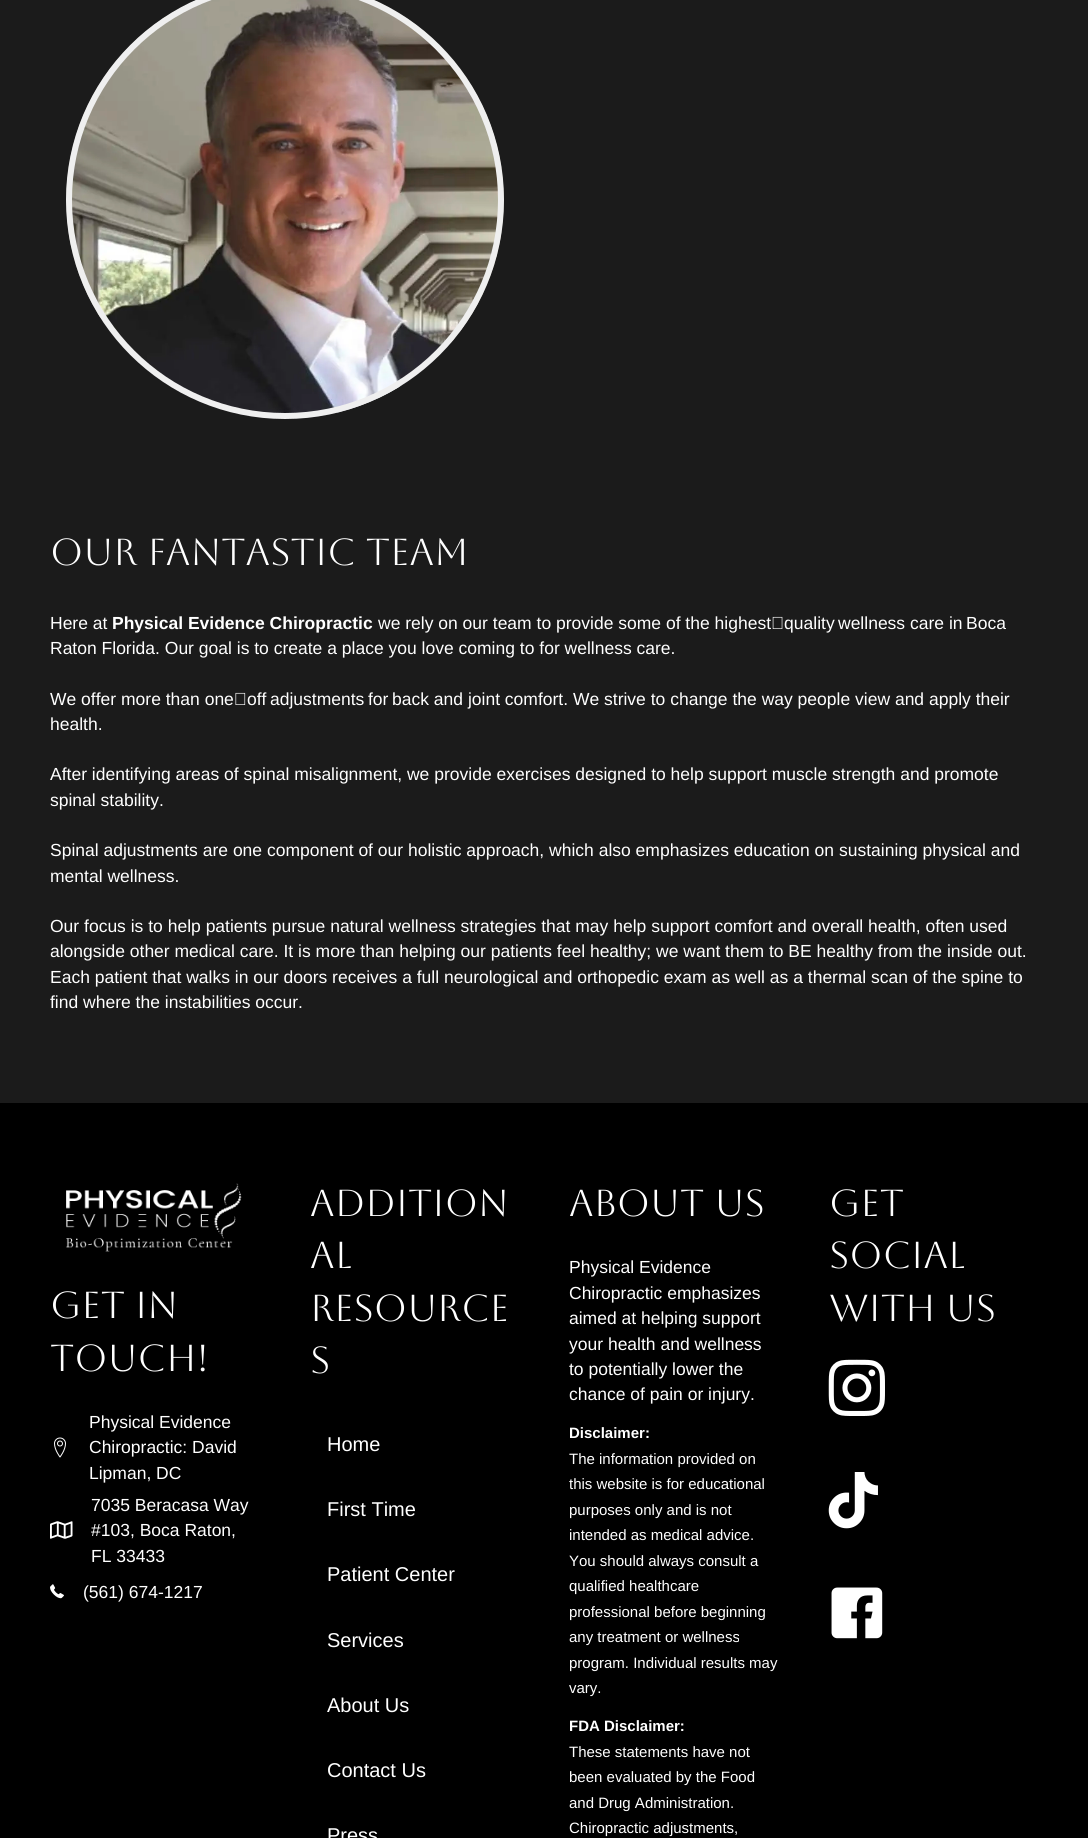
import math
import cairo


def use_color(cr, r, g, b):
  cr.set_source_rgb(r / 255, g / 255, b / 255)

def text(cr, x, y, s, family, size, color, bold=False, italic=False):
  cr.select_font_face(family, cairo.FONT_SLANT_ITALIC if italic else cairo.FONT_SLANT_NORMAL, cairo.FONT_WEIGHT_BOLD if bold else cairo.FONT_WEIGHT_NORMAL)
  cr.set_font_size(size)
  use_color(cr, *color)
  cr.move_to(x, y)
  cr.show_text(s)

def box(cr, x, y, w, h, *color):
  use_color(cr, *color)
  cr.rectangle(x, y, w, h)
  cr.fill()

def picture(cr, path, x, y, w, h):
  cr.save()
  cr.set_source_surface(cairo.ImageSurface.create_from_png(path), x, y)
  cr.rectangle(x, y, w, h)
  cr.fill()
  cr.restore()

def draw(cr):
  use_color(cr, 27, 27, 27)
  cr.paint()
  picture(cr, "img_01.png", 66, 0, 438, 419)
  cr.arc(285, 200, 216, 0, 2 * math.pi)
  use_color(cr, 239, 239, 239)
  cr.set_line_width(6)
  cr.stroke()
  box(cr, 0, 1103, 1088, 735, 0, 0, 0)
  picture(cr, "img_02.png", 828, 1359, 57, 57)
  picture(cr, "img_03.png", 828, 1472, 50, 57)
  picture(cr, "img_04.png", 831, 1587, 52, 52)
  picture(cr, "img_05.png", 66, 1183, 176, 69)
  picture(cr, "img_06.png", 54, 1437, 12, 21)
  picture(cr, "img_07.png", 50, 1521, 23, 18)
  picture(cr, "img_08.png", 50, 1584, 14, 15)
  text(cr, 50, 565, "Our Fantastic Team", "Aboreto", 37.5, (255, 255, 255))
  text(cr, 50, 629, "Here at", "Liberation Sans", 17.5, (255, 255, 255))
  text(cr, 112, 629, "Physical Evidence Chiropractic", "Liberation Sans", 17.5, (255, 255, 255), bold=True)
  text(cr, 378, 629, "we rely on our team to provide some of the highest‑quality", "Liberation Sans", 17.5, (255, 255, 255))
  text(cr, 838, 629, "wellness care in", "Liberation Sans", 17.5, (255, 255, 255))
  text(cr, 966, 629, "Boca", "Liberation Sans", 17.5, (255, 255, 255))
  text(cr, 50, 654, "Raton Florida. Our goal is to create a place you love coming to for wellness care.", "Liberation Sans", 17.5, (255, 255, 255))
  text(cr, 50, 705, "We offer more than one‑off", "Liberation Sans", 17.5, (255, 255, 255))
  text(cr, 270, 705, "adjustments", "Liberation Sans", 17.5, (255, 255, 255))
  text(cr, 368, 705, "for", "Liberation Sans", 17.5, (255, 255, 255))
  text(cr, 392, 705, "back and joint comfort. We strive to change the way people view and apply their", "Liberation Sans", 17.5, (255, 255, 255))
  text(cr, 50, 730, "health.", "Liberation Sans", 17.5, (255, 255, 255))
  text(cr, 50, 780, "After identifying areas of spinal misalignment, we provide exercises designed to help support muscle strength and promote", "Liberation Sans", 17.5, (255, 255, 255))
  text(cr, 50, 806, "spinal stability.", "Liberation Sans", 17.5, (255, 255, 255))
  text(cr, 50, 856, "Spinal adjustments are one component of our holistic approach, which also emphasizes education on sustaining physical and", "Liberation Sans", 17.5, (255, 255, 255))
  text(cr, 50, 882, "mental wellness.", "Liberation Sans", 17.5, (255, 255, 255))
  text(cr, 50, 932, "Our focus is to help patients pursue natural wellness strategies that may help support comfort and overall health, often used", "Liberation Sans", 17.5, (255, 255, 255))
  text(cr, 50, 957, "alongside other medical care. It is more than helping our patients feel healthy; we want them to BE healthy from the inside out.", "Liberation Sans", 17.5, (255, 255, 255))
  text(cr, 50, 983, "Each patient that walks in our doors receives a full neurological and orthopedic exam as well as a thermal scan of the spine to", "Liberation Sans", 17.5, (255, 255, 255))
  text(cr, 50, 1008, "find where the instabilities occur.", "Liberation Sans", 17.5, (255, 255, 255))
  text(cr, 310, 1216, "Addition", "Aboreto", 37.5, (255, 255, 255))
  text(cr, 310, 1268, "al", "Aboreto", 37.5, (255, 255, 255))
  text(cr, 310, 1321, "Resource", "Aboreto", 37.5, (255, 255, 255))
  text(cr, 310, 1373, "s", "Aboreto", 37.5, (255, 255, 255))
  text(cr, 327, 1451, "Home", "Liberation Sans", 20, (255, 255, 255))
  text(cr, 327, 1516, "First Time", "Liberation Sans", 20, (255, 255, 255))
  text(cr, 327, 1581, "Patient Center", "Liberation Sans", 20, (255, 255, 255))
  text(cr, 327, 1647, "Services", "Liberation Sans", 20, (255, 255, 255))
  text(cr, 327, 1712, "About Us", "Liberation Sans", 20, (255, 255, 255))
  text(cr, 327, 1777, "Contact Us", "Liberation Sans", 20, (255, 255, 255))
  text(cr, 327, 1842, "Press", "Liberation Sans", 20, (255, 255, 255))
  text(cr, 569, 1216, "About Us", "Aboreto", 37.5, (255, 255, 255))
  text(cr, 569, 1273, "Physical Evidence", "Liberation Sans", 17.5, (255, 255, 255))
  text(cr, 569, 1299, "Chiropractic emphasizes", "Liberation Sans", 17.5, (255, 255, 255))
  text(cr, 569, 1324, "aimed at helping support", "Liberation Sans", 17.5, (255, 255, 255))
  text(cr, 569, 1350, "your health and wellness", "Liberation Sans", 17.5, (255, 255, 255))
  text(cr, 569, 1375, "to potentially lower the", "Liberation Sans", 17.5, (255, 255, 255))
  text(cr, 569, 1400, "chance of pain or injury.", "Liberation Sans", 17.5, (255, 255, 255))
  text(cr, 569, 1438, "Disclaimer:", "Liberation Sans", 15, (255, 255, 255), bold=True)
  text(cr, 569, 1464, "The information provided on", "Liberation Sans", 15, (255, 255, 255))
  text(cr, 569, 1489, "this website is for educational", "Liberation Sans", 15, (255, 255, 255))
  text(cr, 569, 1515, "purposes only and is not", "Liberation Sans", 15, (255, 255, 255))
  text(cr, 569, 1540, "intended as medical advice.", "Liberation Sans", 15, (255, 255, 255))
  text(cr, 569, 1566, "You should always consult a", "Liberation Sans", 15, (255, 255, 255))
  text(cr, 569, 1591, "qualified healthcare", "Liberation Sans", 15, (255, 255, 255))
  text(cr, 569, 1617, "professional before beginning", "Liberation Sans", 15, (255, 255, 255))
  text(cr, 569, 1642, "any treatment or wellness", "Liberation Sans", 15, (255, 255, 255))
  text(cr, 569, 1668, "program. Individual results may", "Liberation Sans", 15, (255, 255, 255))
  text(cr, 569, 1693, "vary.", "Liberation Sans", 15, (255, 255, 255))
  text(cr, 569, 1731, "FDA Disclaimer:", "Liberation Sans", 15, (255, 255, 255), bold=True)
  text(cr, 569, 1757, "These statements have not", "Liberation Sans", 15, (255, 255, 255))
  text(cr, 569, 1782, "been evaluated by the Food", "Liberation Sans", 15, (255, 255, 255))
  text(cr, 569, 1808, "and Drug Administration.", "Liberation Sans", 15, (255, 255, 255))
  text(cr, 569, 1833, "Chiropractic adjustments,", "Liberation Sans", 15, (255, 255, 255))
  text(cr, 829, 1216, "Get", "Aboreto", 37.5, (255, 255, 255))
  text(cr, 829, 1268, "Social", "Aboreto", 37.5, (255, 255, 255))
  text(cr, 829, 1321, "With Us", "Aboreto", 37.5, (255, 255, 255))
  text(cr, 50, 1318, "Get In", "Aboreto", 37.5, (255, 255, 255))
  text(cr, 50, 1371, "Touch!", "Aboreto", 37.5, (255, 255, 255))
  text(cr, 89, 1428, "Physical Evidence", "Liberation Sans", 17.5, (255, 255, 255))
  text(cr, 89, 1453, "Chiropractic: David", "Liberation Sans", 17.5, (255, 255, 255))
  text(cr, 89, 1479, "Lipman, DC", "Liberation Sans", 17.5, (255, 255, 255))
  text(cr, 91, 1511, "7035 Beracasa Way", "Liberation Sans", 17.5, (255, 255, 255))
  text(cr, 91, 1536, "#103, Boca Raton,", "Liberation Sans", 17.5, (255, 255, 255))
  text(cr, 91, 1562, "FL 33433", "Liberation Sans", 17.5, (255, 255, 255))
  text(cr, 83, 1598, "(561) 674-1217", "Liberation Sans", 17.5, (255, 255, 255))


surface = cairo.ImageSurface(cairo.FORMAT_RGB24, 1088, 1838)
cr = cairo.Context(surface)
options = cairo.FontOptions()
options.set_hint_metrics(cairo.HINT_METRICS_OFF)
options.set_hint_style(cairo.HINT_STYLE_NONE)
cr.set_font_options(options)
cr.set_miter_limit(4)
draw(cr)
surface.write_to_png("out.png")
